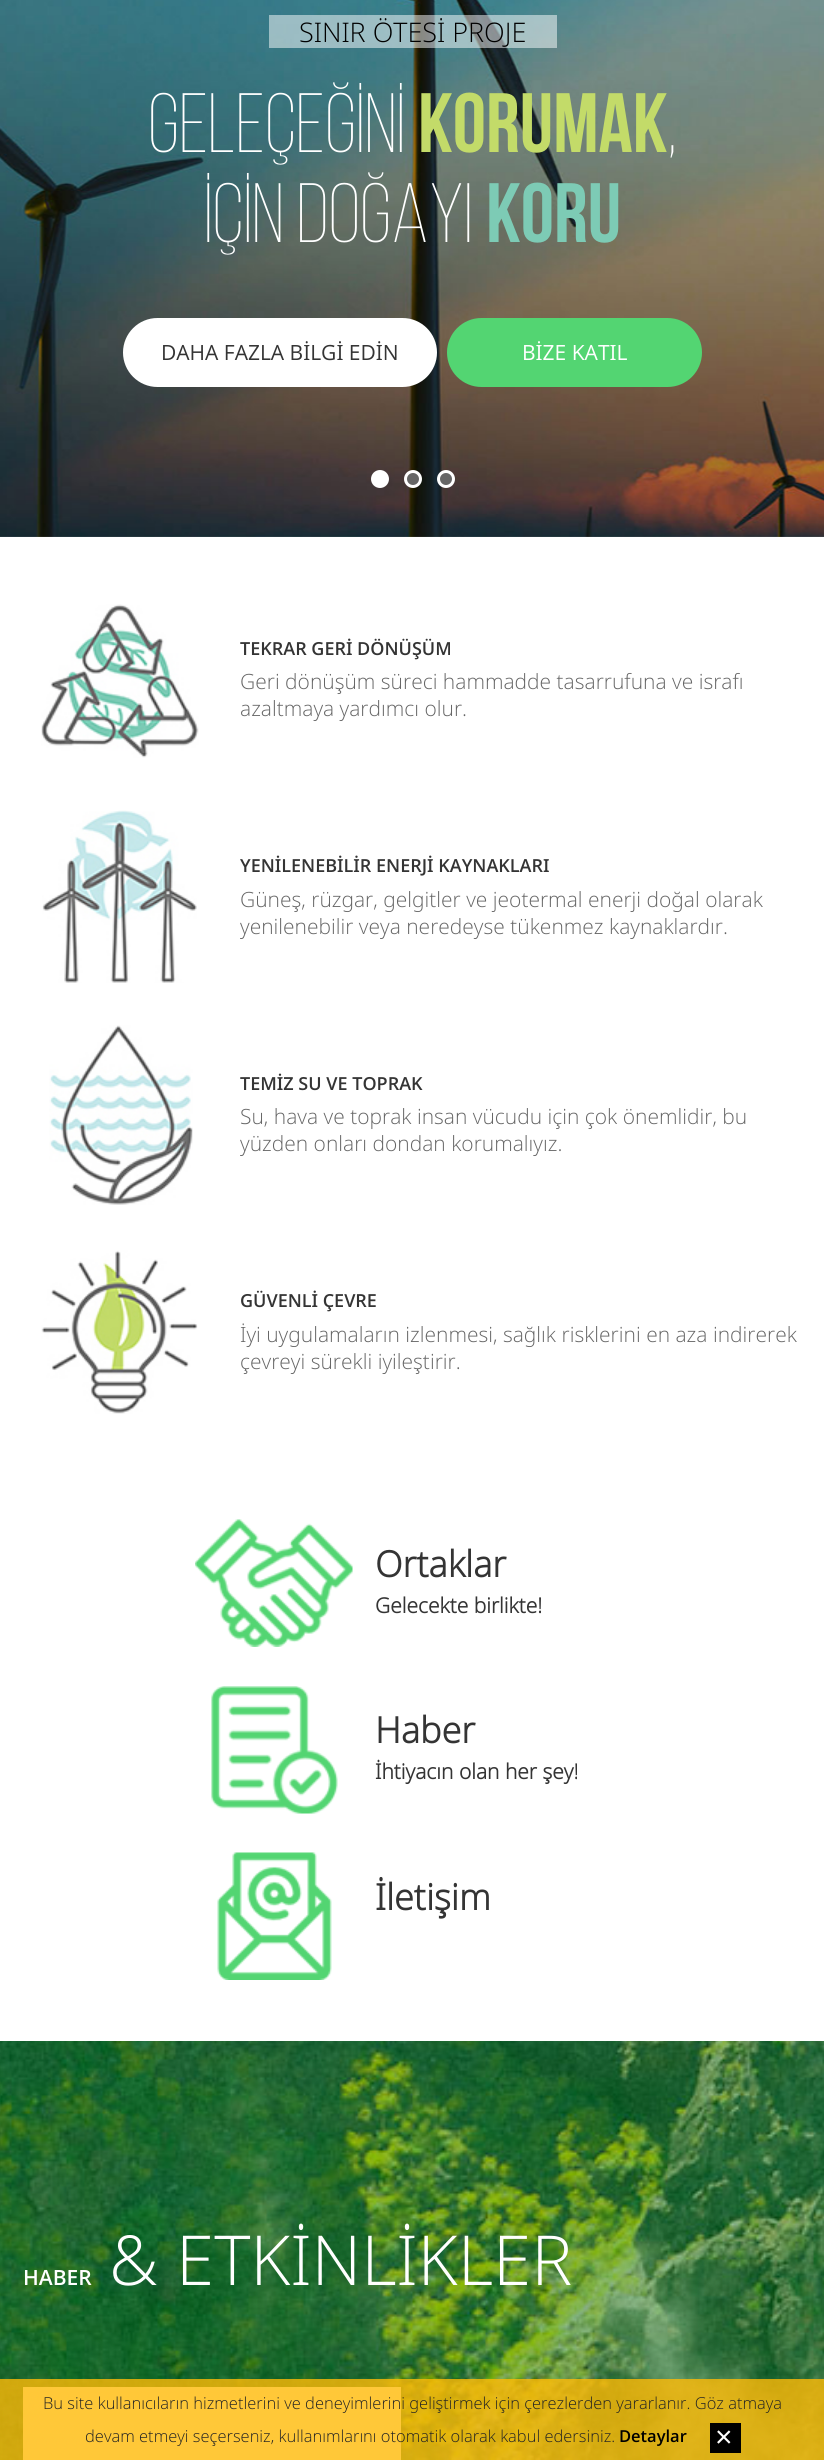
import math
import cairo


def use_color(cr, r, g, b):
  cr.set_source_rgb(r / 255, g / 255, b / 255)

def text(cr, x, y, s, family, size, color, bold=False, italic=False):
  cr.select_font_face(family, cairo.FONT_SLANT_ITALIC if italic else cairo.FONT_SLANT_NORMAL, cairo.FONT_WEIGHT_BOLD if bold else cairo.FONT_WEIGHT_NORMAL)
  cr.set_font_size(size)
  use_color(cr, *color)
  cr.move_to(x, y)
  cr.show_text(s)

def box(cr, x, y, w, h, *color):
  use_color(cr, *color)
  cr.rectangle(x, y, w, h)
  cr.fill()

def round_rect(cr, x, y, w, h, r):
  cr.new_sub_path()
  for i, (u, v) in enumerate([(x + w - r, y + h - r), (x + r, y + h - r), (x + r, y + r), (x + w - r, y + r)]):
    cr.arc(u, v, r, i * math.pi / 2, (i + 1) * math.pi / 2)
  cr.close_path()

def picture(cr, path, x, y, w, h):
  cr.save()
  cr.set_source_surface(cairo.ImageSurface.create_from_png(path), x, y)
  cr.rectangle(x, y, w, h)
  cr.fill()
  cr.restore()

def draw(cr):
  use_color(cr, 255, 255, 255)
  cr.paint()
  picture(cr, "img_01.png", 0, 0, 824, 537)
  use_color(cr, 255, 255, 255)
  cr.arc(380, 479, 7.5, 0, 2 * math.pi)
  cr.fill_preserve()
  cr.set_line_width(3)
  cr.stroke()
  use_color(cr, 102, 102, 102)
  cr.arc(413, 479, 7.5, 0, 2 * math.pi)
  cr.fill_preserve()
  use_color(cr, 255, 255, 255)
  cr.stroke()
  use_color(cr, 102, 102, 102)
  cr.arc(446, 479, 7.5, 0, 2 * math.pi)
  cr.fill_preserve()
  use_color(cr, 255, 255, 255)
  cr.stroke()
  cr.set_source_rgba(1, 1, 1, 0.5)
  cr.rectangle(269, 15, 288, 33)
  cr.fill()
  use_color(cr, 255, 255, 255)
  round_rect(cr, 123, 318, 314, 69, 34.5)
  cr.fill()
  use_color(cr, 83, 213, 114)
  round_rect(cr, 447, 318, 255, 69, 34.5)
  cr.fill()
  picture(cr, "img_02.png", 41, 604, 158, 154)
  picture(cr, "img_03.png", 42, 810, 155, 173)
  picture(cr, "img_04.png", 49, 1025, 144, 180)
  picture(cr, "img_05.png", 41, 1250, 157, 164)
  picture(cr, "img_06.png", 195, 1519, 158, 128)
  picture(cr, "img_07.png", 211, 1686, 127, 128)
  picture(cr, "img_08.png", 217, 1852, 115, 128)
  picture(cr, "img_09.png", 0, 2041, 824, 419)
  box(cr, 23, 2387, 378, 73, 255, 255, 255)
  cr.set_source_rgba(1, 0.729, 0.027, 0.8)
  cr.rectangle(0, 2379, 824, 81)
  cr.fill()
  box(cr, 710, 2423, 31, 30, 0, 0, 0)
  text(cr, 299, 42, "SINIR ÖTESİ PROJE", "Open Sans Light", 27, (0, 0, 0))
  text(cr, 148, 152, "GELEÇEĞİNİ", "Bebas Neue Light", 84, (255, 255, 255))
  text(cr, 418, 152, "KORUMAK", "Bebas Neue", 84, (195, 219, 105), bold=True)
  text(cr, 667, 152, ",", "Bebas Neue Light", 84, (255, 255, 255))
  text(cr, 204, 242, "İÇİN DOĞAYI", "Bebas Neue Light", 84, (255, 255, 255))
  text(cr, 486, 242, "KORU", "Bebas Neue", 84, (125, 203, 181), bold=True)
  text(cr, 161, 360, "DAHA FAZLA BİLGİ EDİN", "Open Sans", 21, (52, 52, 52))
  text(cr, 522, 360, "BİZE KATIL", "Open Sans", 21, (255, 255, 255))
  text(cr, 240, 655, "TEKRAR GERİ DÖNÜŞÜM", "Open Sans SemiBold", 18, (52, 52, 52))
  text(cr, 240, 689, "Geri dönüşüm süreci hammadde tasarrufuna ve israfı", "Open Sans Light", 21, (102, 102, 102))
  text(cr, 240, 716, "azaltmaya yardımcı olur.", "Open Sans Light", 21, (102, 102, 102))
  text(cr, 240, 872, "YENİLENEBİLİR ENERJİ KAYNAKLARI", "Open Sans SemiBold", 18, (52, 52, 52))
  text(cr, 240, 907, "Güneş, rüzgar, gelgitler ve jeotermal enerji doğal olarak", "Open Sans Light", 21, (102, 102, 102))
  text(cr, 240, 934, "yenilenebilir veya neredeyse tükenmez kaynaklardır.", "Open Sans Light", 21, (102, 102, 102))
  text(cr, 240, 1090, "TEMİZ SU VE TOPRAK", "Open Sans SemiBold", 18, (52, 52, 52))
  text(cr, 240, 1124, "Su, hava ve toprak insan vücudu için çok önemlidir, bu", "Open Sans Light", 21, (102, 102, 102))
  text(cr, 240, 1151, "yüzden onları dondan korumalıyız.", "Open Sans Light", 21, (102, 102, 102))
  text(cr, 240, 1307, "GÜVENLİ ÇEVRE", "Open Sans SemiBold", 18, (52, 52, 52))
  text(cr, 240, 1342, "İyi uygulamaların izlenmesi, sağlık risklerini en aza indirerek", "Open Sans Light", 21, (102, 102, 102))
  text(cr, 240, 1369, "çevreyi sürekli iyileştirir.", "Open Sans Light", 21, (102, 102, 102))
  text(cr, 375, 1577, "Ortaklar", "Open Sans", 36, (52, 52, 52), bold=True)
  text(cr, 375, 1613, "Gelecekte birlikte!", "Open Sans", 21, (52, 52, 52), bold=True)
  text(cr, 375, 1743, "Haber", "Open Sans", 36, (52, 52, 52), bold=True)
  text(cr, 375, 1779, "İhtiyacın olan her şey!", "Open Sans", 21, (52, 52, 52), bold=True)
  text(cr, 375, 1910, "İletişim", "Open Sans", 36, (52, 52, 52), bold=True)
  text(cr, 23, 2285, "HABER", "Open Sans SemiBold", 21, (255, 255, 255))
  text(cr, 109, 2285, "& ETKİNLİKLER", "Open Sans Light", 69, (255, 255, 255))
  text(cr, 43, 2409, "Bu site kullanıcıların hizmetlerini ve deneyimlerini geliştirmek için çerezlerden yararlanır. Göz atmaya", "Open Sans Light", 16.5, (35, 35, 35))
  text(cr, 85, 2442, "devam etmeyi seçerseniz, kullanımlarını otomatik olarak kabul edersiniz.", "Open Sans Light", 16.5, (35, 35, 35))
  text(cr, 619, 2442, "Detaylar", "Open Sans SemiBold", 16.5, (0, 0, 0))
  text(cr, 715, 2447, "×", "Liberation Sans", 30, (255, 255, 255))


surface = cairo.ImageSurface(cairo.FORMAT_RGB24, 824, 2460)
cr = cairo.Context(surface)
options = cairo.FontOptions()
options.set_hint_metrics(cairo.HINT_METRICS_OFF)
options.set_hint_style(cairo.HINT_STYLE_NONE)
cr.set_font_options(options)
cr.set_miter_limit(4)
draw(cr)
surface.write_to_png("out.png")
